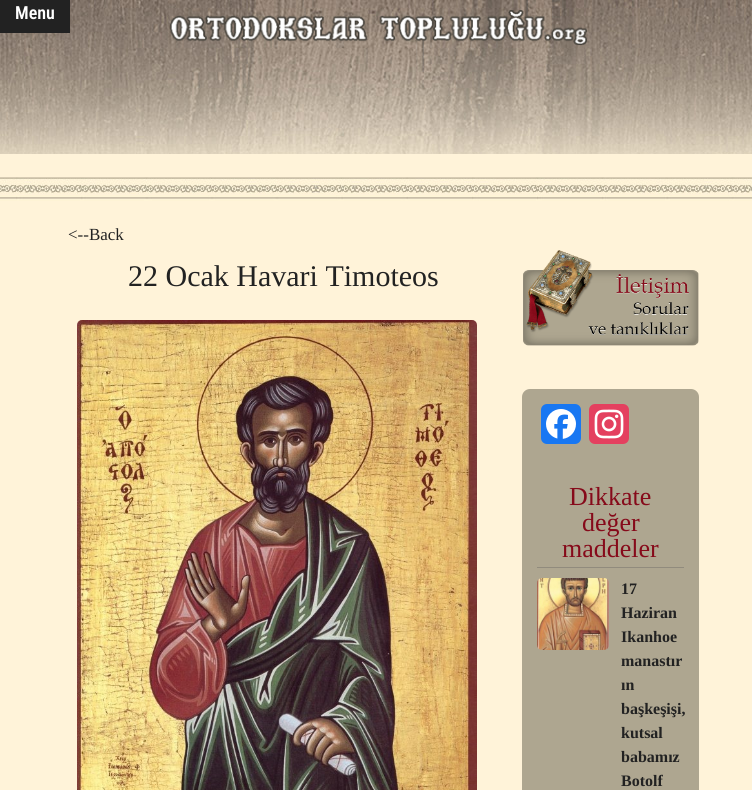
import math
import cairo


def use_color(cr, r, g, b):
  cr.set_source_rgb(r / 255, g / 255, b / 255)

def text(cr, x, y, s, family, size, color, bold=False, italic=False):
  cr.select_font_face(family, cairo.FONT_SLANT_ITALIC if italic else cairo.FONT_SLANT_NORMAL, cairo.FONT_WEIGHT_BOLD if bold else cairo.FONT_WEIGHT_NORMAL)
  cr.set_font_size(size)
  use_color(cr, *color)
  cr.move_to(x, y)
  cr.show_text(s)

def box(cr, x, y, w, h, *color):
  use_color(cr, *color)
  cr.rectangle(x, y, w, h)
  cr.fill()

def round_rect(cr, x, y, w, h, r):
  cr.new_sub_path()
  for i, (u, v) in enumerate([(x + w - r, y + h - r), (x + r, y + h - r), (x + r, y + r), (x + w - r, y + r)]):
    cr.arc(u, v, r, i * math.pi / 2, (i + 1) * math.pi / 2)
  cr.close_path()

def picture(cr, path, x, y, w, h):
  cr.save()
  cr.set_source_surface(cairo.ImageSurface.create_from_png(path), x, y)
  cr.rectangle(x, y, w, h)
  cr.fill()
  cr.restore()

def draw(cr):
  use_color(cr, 255, 243, 217)
  cr.paint()
  picture(cr, "img_01.png", 0, 0, 752, 154)
  box(cr, 0, 0, 70, 33, 34, 34, 34)
  picture(cr, "img_02.png", 169, 10, 419, 36)
  picture(cr, "img_03.png", 0, 177, 752, 24)
  picture(cr, "img_04.png", 77, 320, 400, 470)
  picture(cr, "img_05.png", 523, 250, 176, 96)
  use_color(cr, 174, 166, 144)
  round_rect(cr, 522, 389, 177, 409, 8)
  cr.fill()
  use_color(cr, 24, 119, 242)
  round_rect(cr, 541, 404, 40, 40, 6)
  cr.fill()
  picture(cr, "img_06.png", 546, 409, 30, 30)
  use_color(cr, 228, 64, 95)
  round_rect(cr, 589, 404, 40, 40, 6)
  cr.fill()
  picture(cr, "img_07.png", 594, 409, 30, 30)
  box(cr, 537, 567, 147, 1, 145, 139, 125)
  picture(cr, "img_08.png", 537, 578, 72, 72)
  text(cr, 15, 19, "Menu", "Roboto Condensed SemiBold", 18, (255, 255, 255))
  text(cr, 68, 240, "<--Back", "Liberation Serif", 17, (34, 34, 34))
  text(cr, 128, 286, "22 Ocak Havari Timoteos", "Liberation Serif", 30, (34, 34, 34))
  text(cr, 569, 505, "Dikkate", "Liberation Serif", 26, (134, 10, 26))
  text(cr, 582, 531, "değer", "Liberation Serif", 26, (134, 10, 26))
  text(cr, 562, 557, "maddeler", "Liberation Serif", 26, (134, 10, 26))
  text(cr, 621, 594, "17", "Liberation Serif", 16, (34, 34, 34), bold=True)
  text(cr, 621, 618, "Haziran", "Liberation Serif", 16, (34, 34, 34), bold=True)
  text(cr, 621, 642, "Ikanhoe", "Liberation Serif", 16, (34, 34, 34), bold=True)
  text(cr, 621, 666, "manastır", "Liberation Serif", 16, (34, 34, 34), bold=True)
  text(cr, 621, 690, "ın", "Liberation Serif", 16, (34, 34, 34), bold=True)
  text(cr, 621, 714, "başkeşişi,", "Liberation Serif", 16, (34, 34, 34), bold=True)
  text(cr, 621, 738, "kutsal", "Liberation Serif", 16, (34, 34, 34), bold=True)
  text(cr, 621, 762, "babamız", "Liberation Serif", 16, (34, 34, 34), bold=True)
  text(cr, 621, 786, "Botolf", "Liberation Serif", 16, (34, 34, 34), bold=True)


surface = cairo.ImageSurface(cairo.FORMAT_RGB24, 752, 790)
cr = cairo.Context(surface)
options = cairo.FontOptions()
options.set_hint_metrics(cairo.HINT_METRICS_OFF)
options.set_hint_style(cairo.HINT_STYLE_NONE)
cr.set_font_options(options)
cr.set_miter_limit(4)
draw(cr)
surface.write_to_png("out.png")
